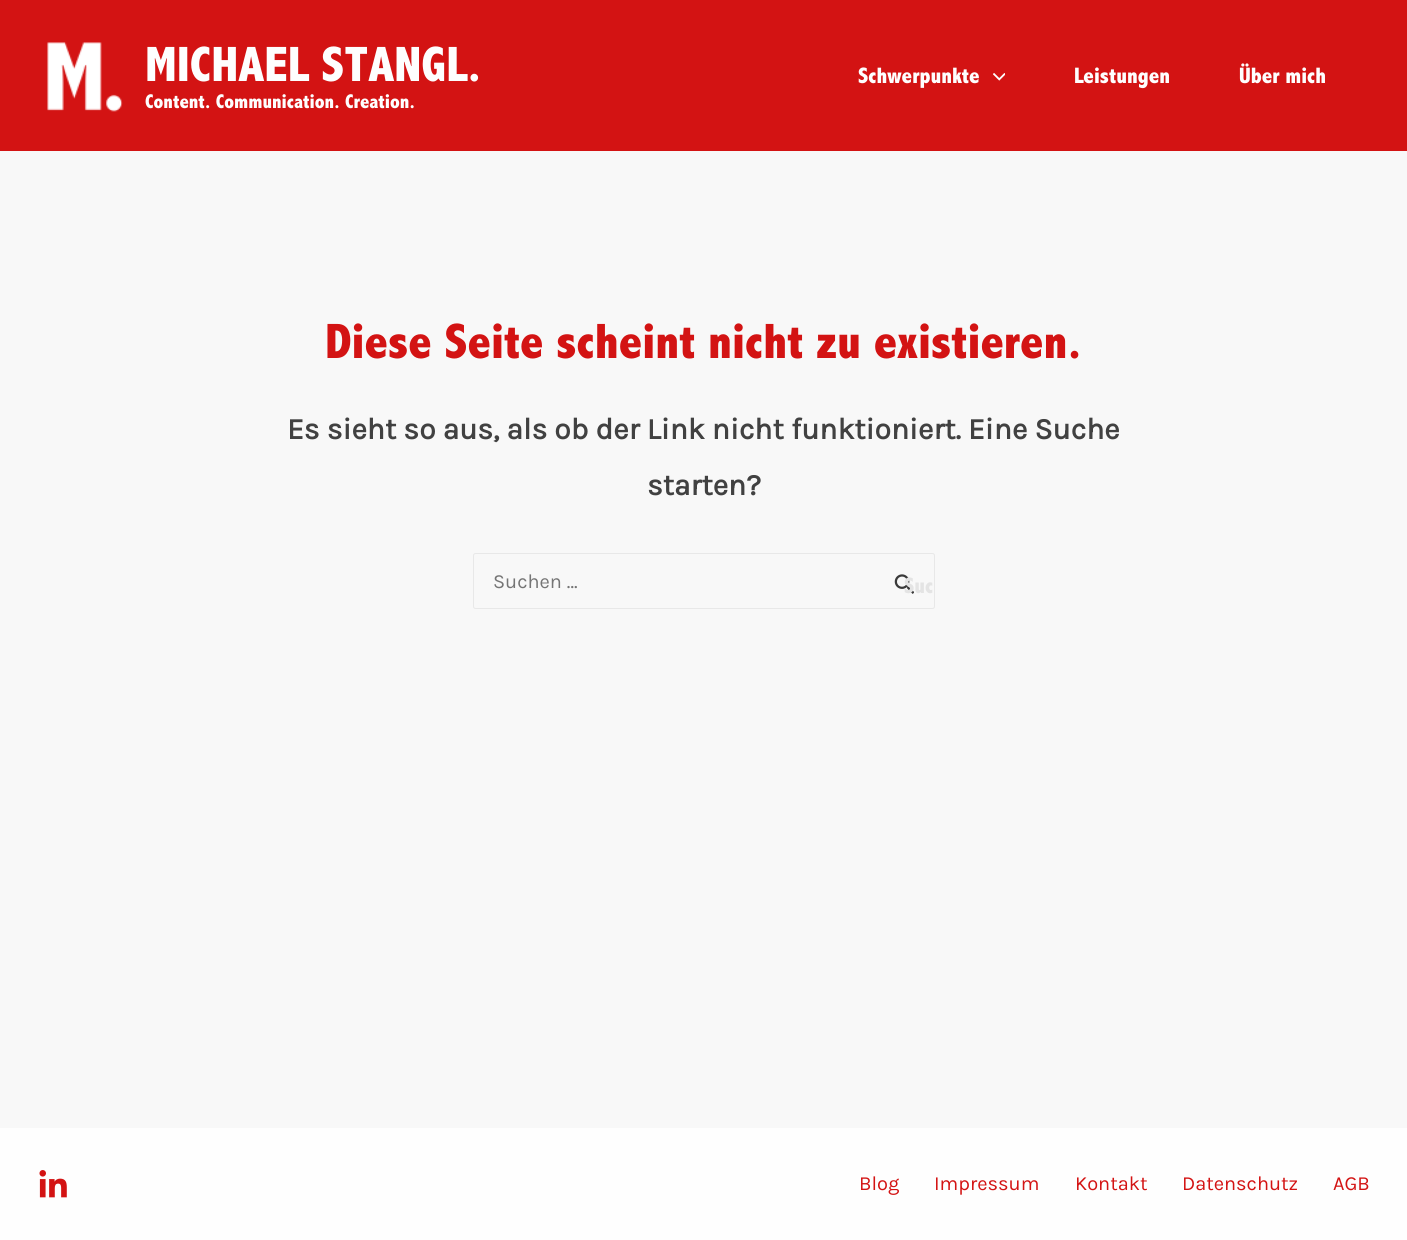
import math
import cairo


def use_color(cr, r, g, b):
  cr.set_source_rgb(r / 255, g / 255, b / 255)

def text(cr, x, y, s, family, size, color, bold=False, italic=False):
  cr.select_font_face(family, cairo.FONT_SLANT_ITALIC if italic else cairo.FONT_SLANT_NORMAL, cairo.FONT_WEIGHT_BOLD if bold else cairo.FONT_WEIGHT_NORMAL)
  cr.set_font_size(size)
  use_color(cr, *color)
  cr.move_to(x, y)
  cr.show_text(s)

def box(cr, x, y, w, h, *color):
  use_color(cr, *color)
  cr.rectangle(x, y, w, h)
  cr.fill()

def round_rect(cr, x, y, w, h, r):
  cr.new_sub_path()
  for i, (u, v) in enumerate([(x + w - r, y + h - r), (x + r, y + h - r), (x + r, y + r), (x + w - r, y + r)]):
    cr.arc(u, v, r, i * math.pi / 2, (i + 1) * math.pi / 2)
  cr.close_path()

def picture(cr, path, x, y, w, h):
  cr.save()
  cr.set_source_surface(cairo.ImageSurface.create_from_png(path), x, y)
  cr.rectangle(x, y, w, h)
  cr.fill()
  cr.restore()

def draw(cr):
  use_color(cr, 248, 248, 248)
  cr.paint()
  box(cr, 0, 0, 1407, 151, 211, 19, 19)
  picture(cr, "img_01.png", 47, 42, 76, 70)
  picture(cr, "img_02.png", 993, 73, 12, 8)
  round_rect(cr, 473.5, 553.5, 461, 55, 2)
  use_color(cr, 232, 232, 232)
  cr.set_line_width(1)
  cr.stroke()
  picture(cr, "img_03.png", 894, 574, 20, 20)
  box(cr, 0, 1128, 1407, 112, 254, 254, 254)
  picture(cr, "img_04.png", 39, 1170, 28, 28)
  text(cr, 145, 81, "MICHAEL STANGL.", "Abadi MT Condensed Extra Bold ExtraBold", 50, (254, 254, 254))
  text(cr, 145, 108, "Content. Communication. Creation.", "Abadi MT Condensed Extra Bold ExtraBold", 20, (254, 254, 254))
  text(cr, 858, 83, "Schwerpunkte", "Abadi MT Condensed Extra Bold ExtraBold", 22.5, (254, 254, 254))
  text(cr, 1074, 83, "Leistungen", "Abadi MT Condensed Extra Bold ExtraBold", 22.5, (254, 254, 254))
  text(cr, 1239, 83, "Über mich", "Abadi MT Condensed Extra Bold ExtraBold", 22.5, (254, 254, 254))
  text(cr, 325, 358, "Diese Seite scheint nicht zu existieren.", "Abadi MT Condensed Extra Bold ExtraBold", 50, (211, 19, 19))
  text(cr, 287, 439, "Es sieht so aus, als ob der Link nicht funktioniert. Eine Suche", "Karla", 30, (65, 65, 65), bold=True)
  text(cr, 647, 495, "starten?", "Karla", 30, (65, 65, 65), bold=True)
  text(cr, 493, 588, "Suchen …", "Karla", 20, (117, 117, 117))
  text(cr, 904, 593, "Suc", "Abadi MT Condensed Extra Bold ExtraBold", 22.5, (228, 228, 228))
  text(cr, 859, 1190, "Blog", "Karla", 20, (211, 19, 19))
  text(cr, 934, 1190, "Impressum", "Karla", 20, (211, 19, 19))
  text(cr, 1075, 1190, "Kontakt", "Karla", 20, (211, 19, 19))
  text(cr, 1182, 1190, "Datenschutz", "Karla", 20, (211, 19, 19))
  text(cr, 1333, 1190, "AGB", "Karla", 20, (211, 19, 19))


surface = cairo.ImageSurface(cairo.FORMAT_RGB24, 1407, 1240)
cr = cairo.Context(surface)
options = cairo.FontOptions()
options.set_hint_metrics(cairo.HINT_METRICS_OFF)
options.set_hint_style(cairo.HINT_STYLE_NONE)
cr.set_font_options(options)
cr.set_miter_limit(4)
draw(cr)
surface.write_to_png("out.png")
